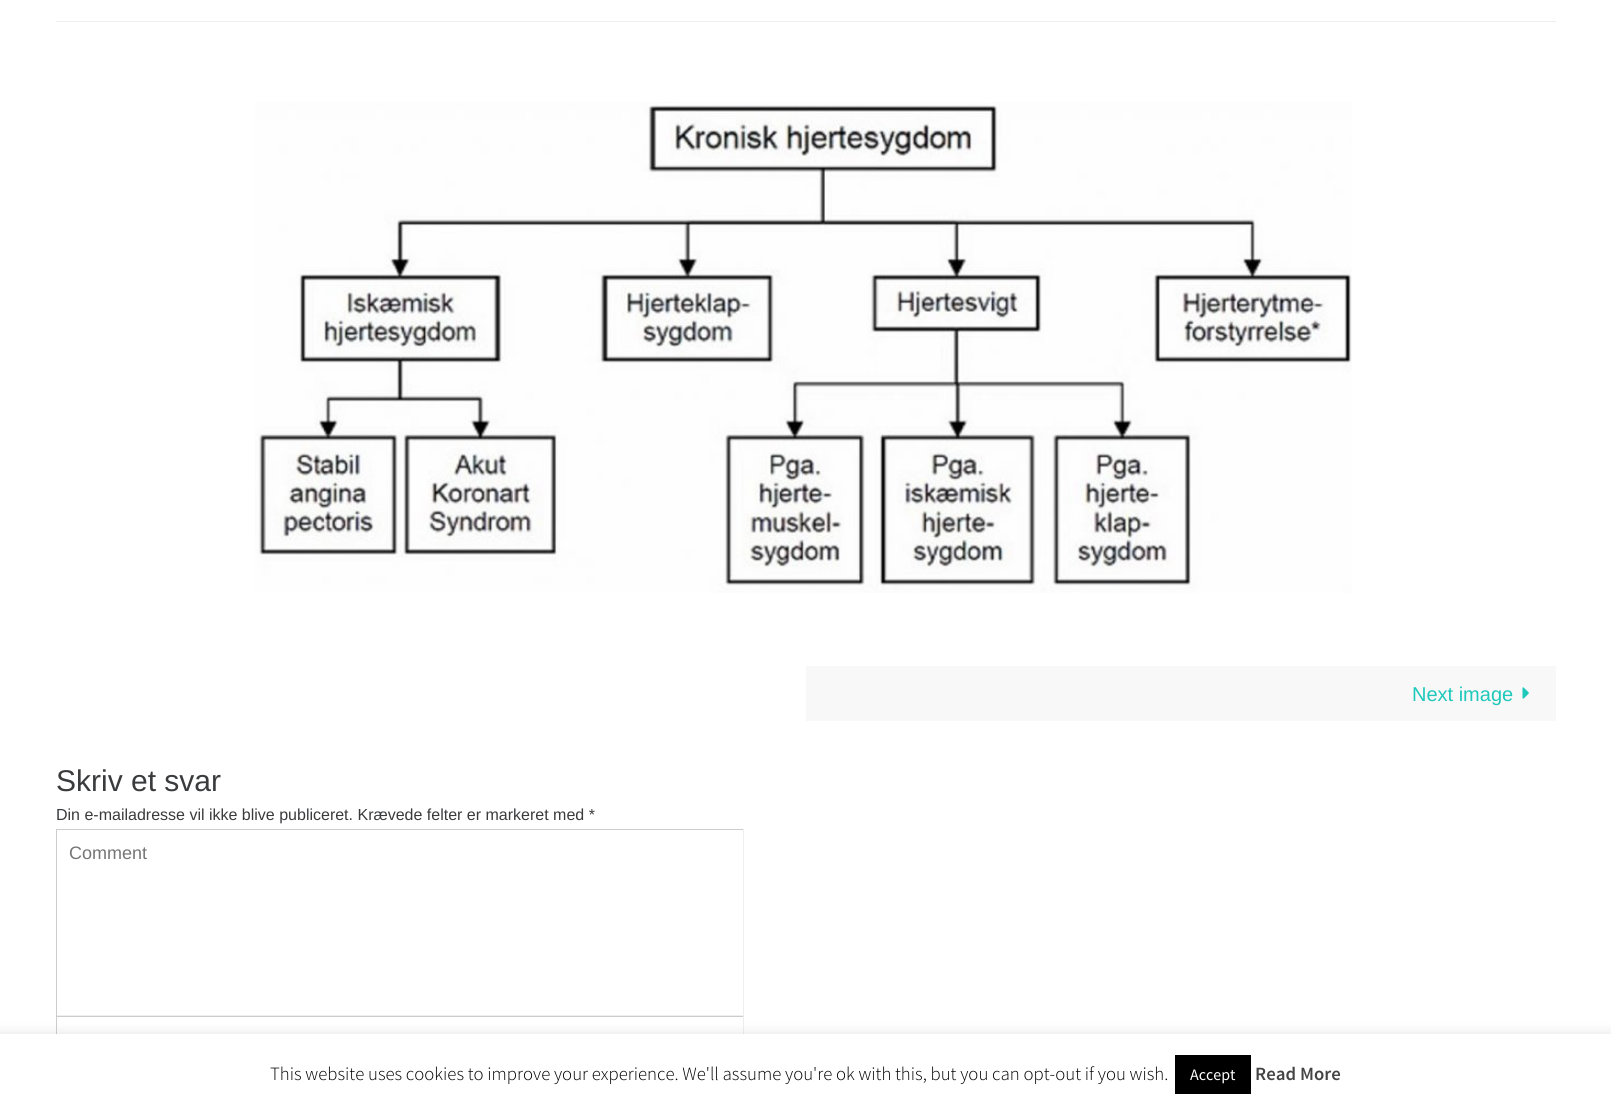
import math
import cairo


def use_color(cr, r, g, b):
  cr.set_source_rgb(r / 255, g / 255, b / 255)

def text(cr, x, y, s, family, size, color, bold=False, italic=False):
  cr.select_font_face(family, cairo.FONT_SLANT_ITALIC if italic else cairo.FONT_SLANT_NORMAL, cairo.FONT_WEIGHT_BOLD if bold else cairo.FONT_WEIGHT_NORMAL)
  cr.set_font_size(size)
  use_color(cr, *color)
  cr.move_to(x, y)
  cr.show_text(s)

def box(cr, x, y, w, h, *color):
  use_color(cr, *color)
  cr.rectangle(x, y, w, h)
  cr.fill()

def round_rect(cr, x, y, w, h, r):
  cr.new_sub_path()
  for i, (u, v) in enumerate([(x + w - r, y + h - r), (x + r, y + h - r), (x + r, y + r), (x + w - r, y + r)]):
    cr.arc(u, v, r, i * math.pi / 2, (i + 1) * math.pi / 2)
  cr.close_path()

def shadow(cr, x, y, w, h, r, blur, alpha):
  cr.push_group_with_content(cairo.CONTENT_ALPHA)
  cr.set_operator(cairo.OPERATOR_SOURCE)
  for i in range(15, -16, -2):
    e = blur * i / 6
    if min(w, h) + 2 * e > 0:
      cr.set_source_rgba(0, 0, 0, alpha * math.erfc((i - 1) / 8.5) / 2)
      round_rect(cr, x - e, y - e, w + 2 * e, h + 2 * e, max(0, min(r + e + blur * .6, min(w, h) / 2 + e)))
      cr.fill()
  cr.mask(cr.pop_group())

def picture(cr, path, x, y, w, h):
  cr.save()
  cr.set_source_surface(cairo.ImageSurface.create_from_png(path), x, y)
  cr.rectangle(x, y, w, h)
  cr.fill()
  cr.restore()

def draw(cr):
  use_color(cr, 255, 255, 255)
  cr.paint()
  box(cr, 56, 21, 1500, 1, 238, 238, 238)
  picture(cr, "img_01.png", 255, 102, 1097, 491)
  box(cr, 806, 666, 750, 55, 248, 248, 248)
  picture(cr, "img_02.png", 1522, 687, 7, 12)
  box(cr, 56, 829, 688, 1, 204, 204, 204)
  box(cr, 743, 829, 1, 187, 238, 238, 238)
  box(cr, 56, 1015, 688, 1, 238, 238, 238)
  box(cr, 56, 829, 1, 187, 204, 204, 204)
  box(cr, 56, 1016, 688, 1, 204, 204, 204)
  box(cr, 743, 1016, 1, 18, 238, 238, 238)
  box(cr, 56, 1016, 1, 18, 204, 204, 204)
  use_color(cr, 172, 171, 171)
  shadow(cr, 0, 1033, 1611, 75, 0, 6, 0.3)
  box(cr, 0, 1034, 1611, 74, 255, 255, 255)
  box(cr, 1175, 1055, 76, 39, 0, 0, 0)
  text(cr, 1412, 701, "Next image", "Liberation Sans", 20, (30, 200, 187))
  text(cr, 56, 791, "Skriv et svar", "Liberation Sans", 30, (58, 59, 61))
  text(cr, 56, 820, "Din e-mailadresse vil ikke blive publiceret. Krævede felter er markeret med *", "Liberation Sans", 16, (58, 59, 61))
  text(cr, 69, 859, "Comment", "Liberation Sans", 18, (117, 117, 117))
  text(cr, 270, 1080, "This website uses cookies to improve your experience. We'll assume you're ok with this, but you can opt-out if you wish.", "Source Sans Pro Light", 18.75, (0, 0, 0))
  text(cr, 1190, 1080, "Accept", "Source Sans Pro", 16, (255, 255, 255))
  text(cr, 1255, 1080, "Read More", "Source Sans Pro SemiBold", 18.75, (68, 68, 68))


surface = cairo.ImageSurface(cairo.FORMAT_RGB24, 1611, 1108)
cr = cairo.Context(surface)
options = cairo.FontOptions()
options.set_hint_metrics(cairo.HINT_METRICS_OFF)
options.set_hint_style(cairo.HINT_STYLE_NONE)
cr.set_font_options(options)
cr.set_miter_limit(4)
draw(cr)
surface.write_to_png("out.png")
